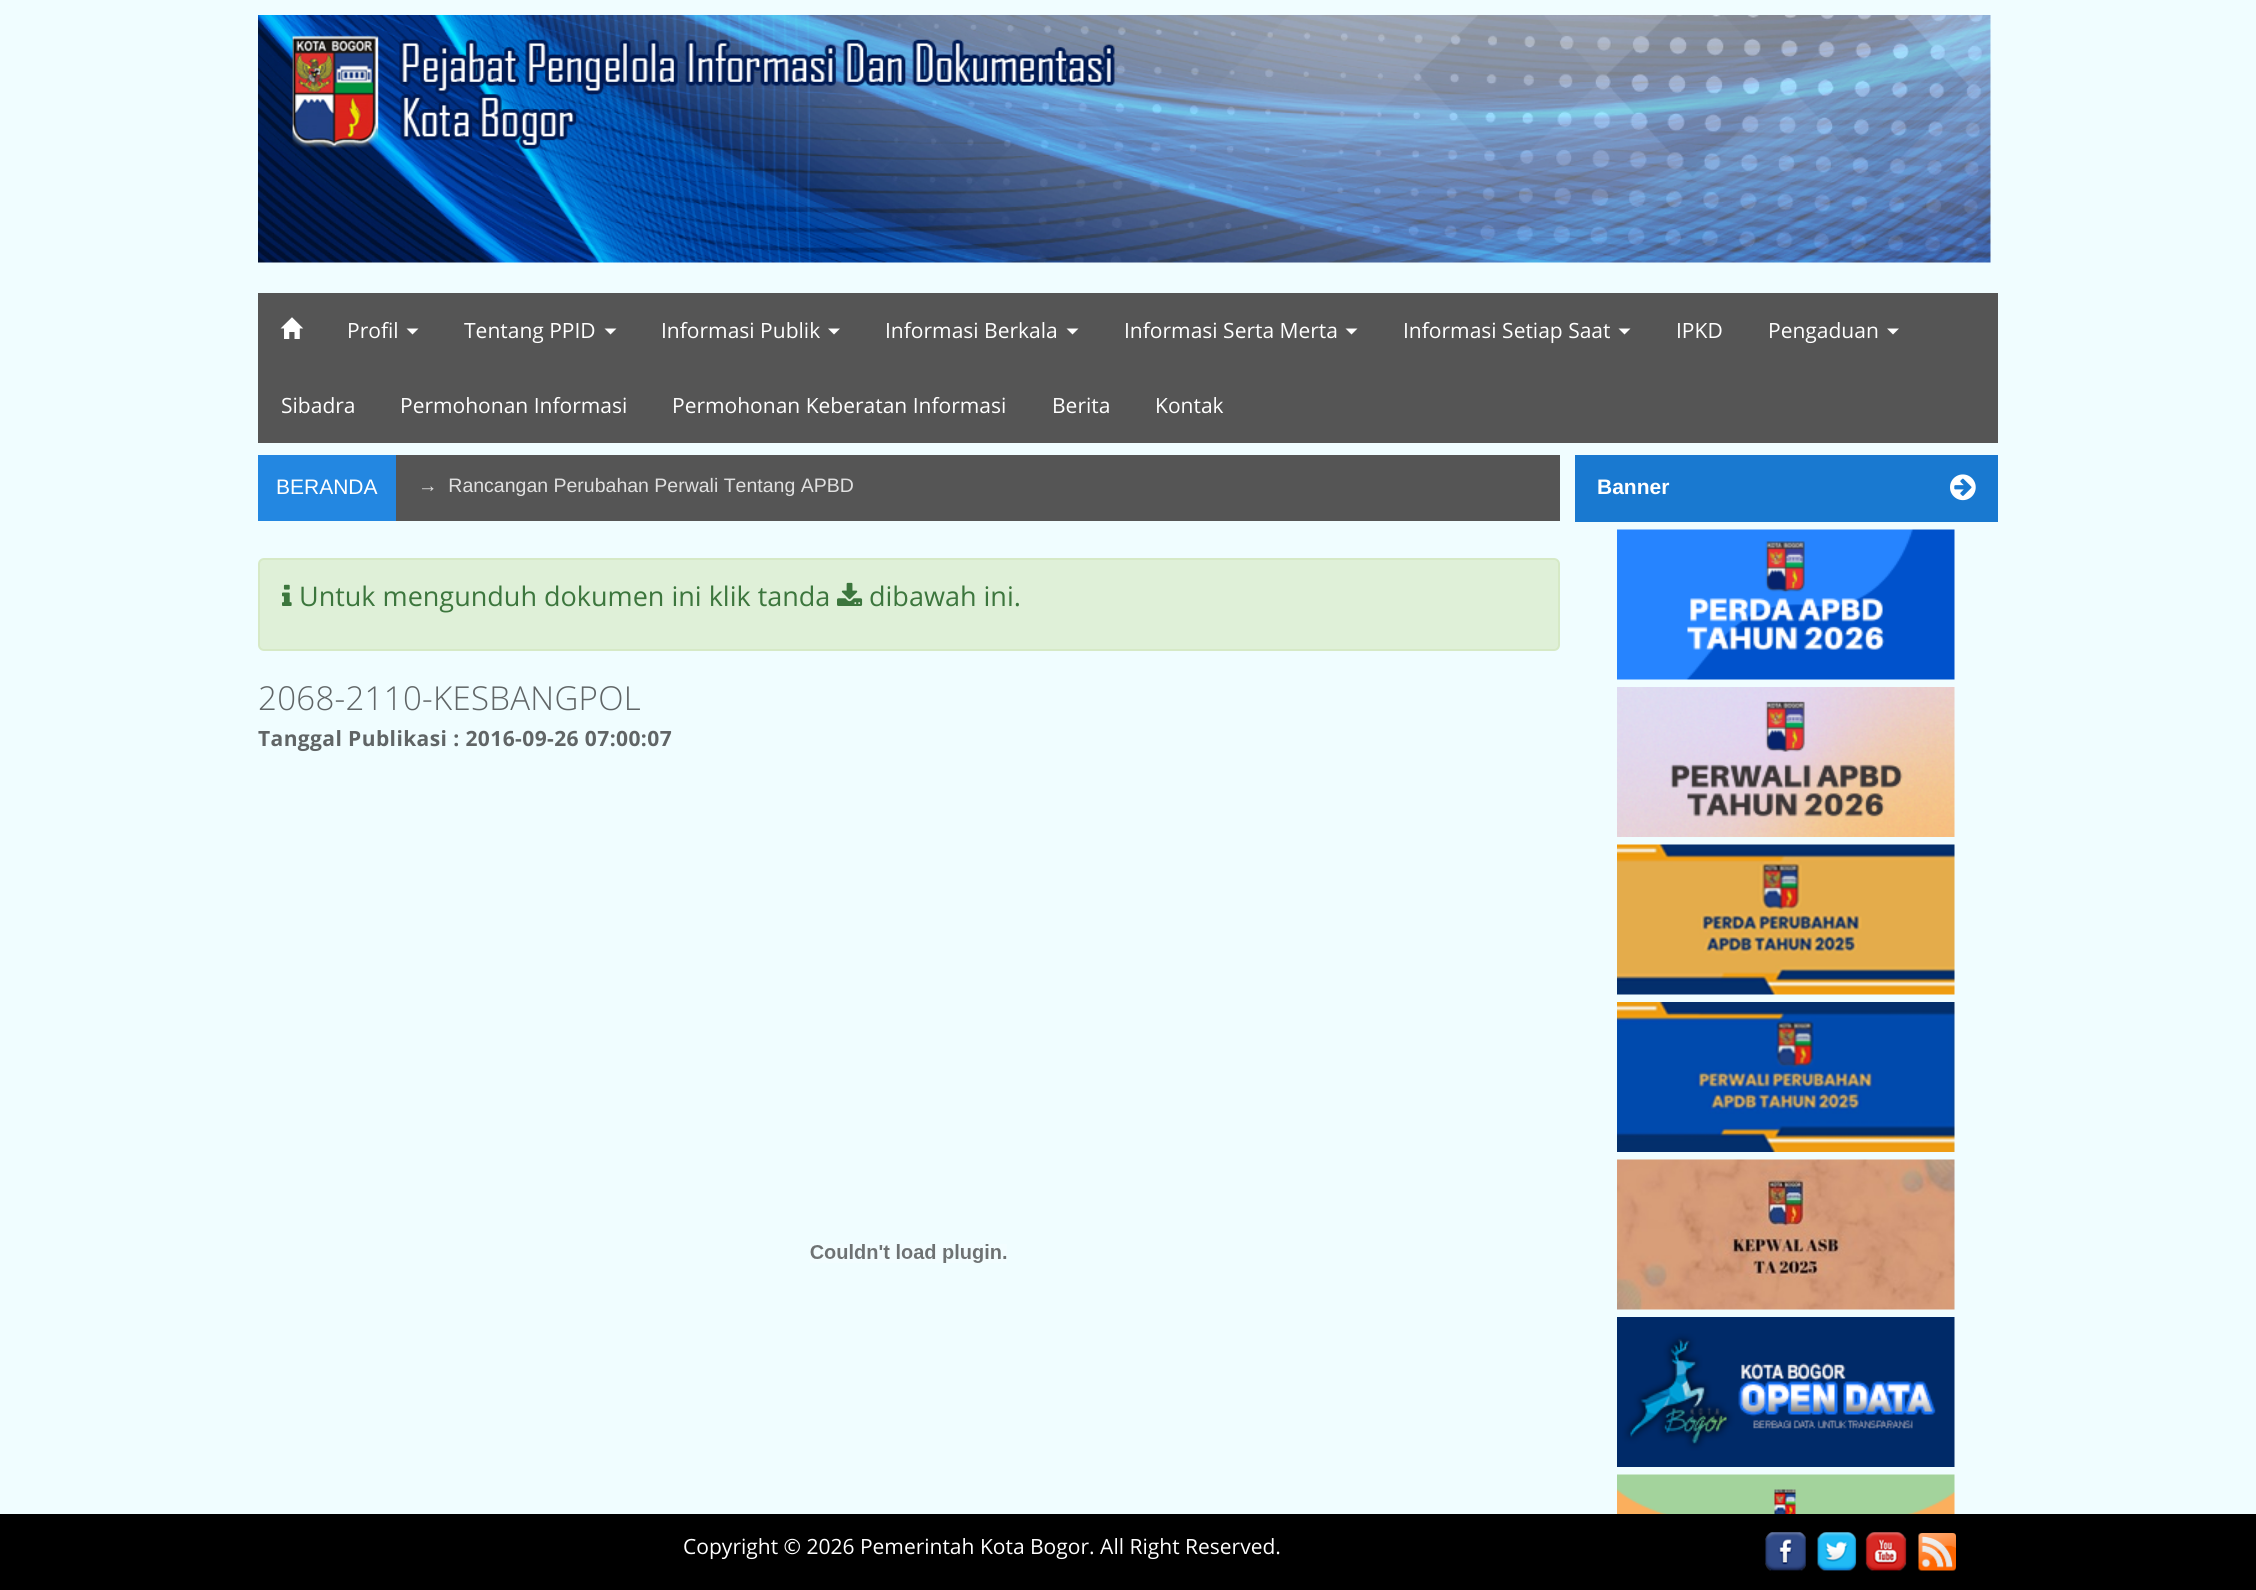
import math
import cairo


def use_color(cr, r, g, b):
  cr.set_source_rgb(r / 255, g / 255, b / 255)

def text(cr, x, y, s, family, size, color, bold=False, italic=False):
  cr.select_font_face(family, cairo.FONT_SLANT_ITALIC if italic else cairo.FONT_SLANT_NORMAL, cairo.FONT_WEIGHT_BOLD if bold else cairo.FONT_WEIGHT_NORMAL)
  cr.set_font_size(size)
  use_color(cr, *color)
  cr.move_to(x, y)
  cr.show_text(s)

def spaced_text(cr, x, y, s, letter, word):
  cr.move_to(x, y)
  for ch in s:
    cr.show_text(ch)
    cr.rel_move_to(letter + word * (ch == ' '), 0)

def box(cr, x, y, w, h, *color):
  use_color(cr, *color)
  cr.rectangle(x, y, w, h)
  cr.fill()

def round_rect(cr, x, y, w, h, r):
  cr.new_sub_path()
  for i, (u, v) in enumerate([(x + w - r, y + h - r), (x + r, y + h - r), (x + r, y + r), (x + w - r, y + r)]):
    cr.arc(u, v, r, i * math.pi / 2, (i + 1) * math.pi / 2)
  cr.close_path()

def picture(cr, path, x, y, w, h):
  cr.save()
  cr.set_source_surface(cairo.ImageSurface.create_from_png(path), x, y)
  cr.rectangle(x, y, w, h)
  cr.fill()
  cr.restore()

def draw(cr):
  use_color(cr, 240, 253, 255)
  cr.paint()
  picture(cr, "img_01.png", 258, 15, 1733, 248)
  box(cr, 258, 293, 1740, 150, 85, 85, 85)
  picture(cr, "img_02.png", 280, 317, 24, 22)
  use_color(cr, 255, 255, 255)
  cr.new_path()
  cr.move_to(406.5, 328.5)
  cr.line_to(418.5, 328.5)
  cr.line_to(412.5, 334.5)
  cr.close_path()
  cr.fill()
  cr.new_path()
  cr.move_to(604.5, 328.5)
  cr.line_to(616.5, 328.5)
  cr.line_to(610.5, 334.5)
  cr.close_path()
  cr.fill()
  cr.new_path()
  cr.move_to(828, 328.5)
  cr.line_to(840, 328.5)
  cr.line_to(834, 334.5)
  cr.close_path()
  cr.fill()
  cr.new_path()
  cr.move_to(1066.5, 328.5)
  cr.line_to(1078.5, 328.5)
  cr.line_to(1072.5, 334.5)
  cr.close_path()
  cr.fill()
  cr.new_path()
  cr.move_to(1345.5, 328.5)
  cr.line_to(1357.5, 328.5)
  cr.line_to(1351.5, 334.5)
  cr.close_path()
  cr.fill()
  cr.new_path()
  cr.move_to(1618.5, 328.5)
  cr.line_to(1630.5, 328.5)
  cr.line_to(1624.5, 334.5)
  cr.close_path()
  cr.fill()
  cr.new_path()
  cr.move_to(1887, 328.5)
  cr.line_to(1899, 328.5)
  cr.line_to(1893, 334.5)
  cr.close_path()
  cr.fill()
  box(cr, 396, 455, 1164, 66, 85, 85, 85)
  box(cr, 258, 455, 138, 66, 35, 135, 225)
  use_color(cr, 223, 240, 216)
  round_rect(cr, 259, 559, 1300, 91, 5)
  cr.fill_preserve()
  use_color(cr, 214, 233, 198)
  cr.stroke()
  picture(cr, "img_03.png", 282, 584, 10, 22)
  picture(cr, "img_04.png", 837, 582, 26, 24)
  picture(cr, "img_05.png", 810, 1244, 197, 19)
  box(cr, 1575, 455, 423, 67, 25, 121, 208)
  picture(cr, "img_06.png", 1950, 474, 26, 27)
  picture(cr, "img_07.png", 1617, 529, 338, 151)
  picture(cr, "img_08.png", 1617, 687, 338, 150)
  picture(cr, "img_09.png", 1617, 844, 338, 151)
  picture(cr, "img_10.png", 1617, 1002, 338, 150)
  picture(cr, "img_11.png", 1617, 1159, 338, 151)
  picture(cr, "img_12.png", 1617, 1317, 338, 150)
  picture(cr, "img_13.png", 1617, 1474, 338, 40)
  box(cr, 0, 1514, 2256, 76, 0, 0, 0)
  picture(cr, "img_14.png", 1765, 1532, 41, 39)
  picture(cr, "img_15.png", 1817, 1532, 40, 39)
  picture(cr, "img_16.png", 1865, 1532, 42, 39)
  picture(cr, "img_17.png", 1918, 1533, 38, 38)
  text(cr, 347, 338, "Profil", "Open Sans", 21, (255, 255, 255))
  text(cr, 464, 338, "Tentang PPID", "Open Sans", 21, (255, 255, 255))
  text(cr, 661, 338, "Informasi Publik", "Open Sans", 21, (255, 255, 255))
  text(cr, 885, 338, "Informasi Berkala", "Open Sans", 21, (255, 255, 255))
  text(cr, 1124, 338, "Informasi Serta Merta", "Open Sans", 21, (255, 255, 255))
  text(cr, 1403, 338, "Informasi Setiap Saat", "Open Sans", 21, (255, 255, 255))
  text(cr, 1676, 338, "IPKD", "Open Sans", 21, (255, 255, 255))
  text(cr, 1768, 338, "Pengaduan", "Open Sans", 21, (255, 255, 255))
  text(cr, 281, 413, "Sibadra", "Open Sans", 21, (255, 255, 255))
  text(cr, 400, 413, "Permohonan Informasi", "Open Sans", 21, (255, 255, 255))
  text(cr, 672, 413, "Permohonan Keberatan Informasi", "Open Sans", 21, (255, 255, 255))
  text(cr, 1052, 413, "Berita", "Open Sans", 21, (255, 255, 255))
  text(cr, 1155, 413, "Kontak", "Open Sans", 21, (255, 255, 255))
  text(cr, 276, 494, "BERANDA", "Liberation Sans", 21, (255, 255, 255))
  text(cr, 418, 492, "→  Rancangan Perubahan Perwali Tentang APBD", "Liberation Sans", 19.5, (224, 224, 224))
  text(cr, 299, 606, "Untuk mengunduh dokumen ini klik tanda", "Open Sans", 27, (60, 118, 61))
  text(cr, 869, 606, "dibawah ini.", "Open Sans", 27, (60, 118, 61))
  cr.select_font_face("Open Sans Light")
  cr.set_font_size(33)
  use_color(cr, 96, 101, 102)
  spaced_text(cr, 258, 710, "2068-2110-KESBANGPOL", 0.3, 0)
  cr.select_font_face("Open Sans", cairo.FONT_SLANT_NORMAL, cairo.FONT_WEIGHT_BOLD)
  cr.set_font_size(21)
  spaced_text(cr, 258, 746, "Tanggal Publikasi : 2016-09-26 07:00:07", 0.4, 0)
  text(cr, 1597, 494, "Banner", "Liberation Sans", 21, (255, 255, 255), bold=True)
  text(cr, 683, 1554, "Copyright © 2026 Pemerintah Kota Bogor. All Right Reserved.", "Open Sans", 21, (255, 255, 255))


surface = cairo.ImageSurface(cairo.FORMAT_RGB24, 2256, 1590)
cr = cairo.Context(surface)
options = cairo.FontOptions()
options.set_hint_metrics(cairo.HINT_METRICS_OFF)
options.set_hint_style(cairo.HINT_STYLE_NONE)
cr.set_font_options(options)
cr.set_miter_limit(4)
draw(cr)
surface.write_to_png("out.png")
